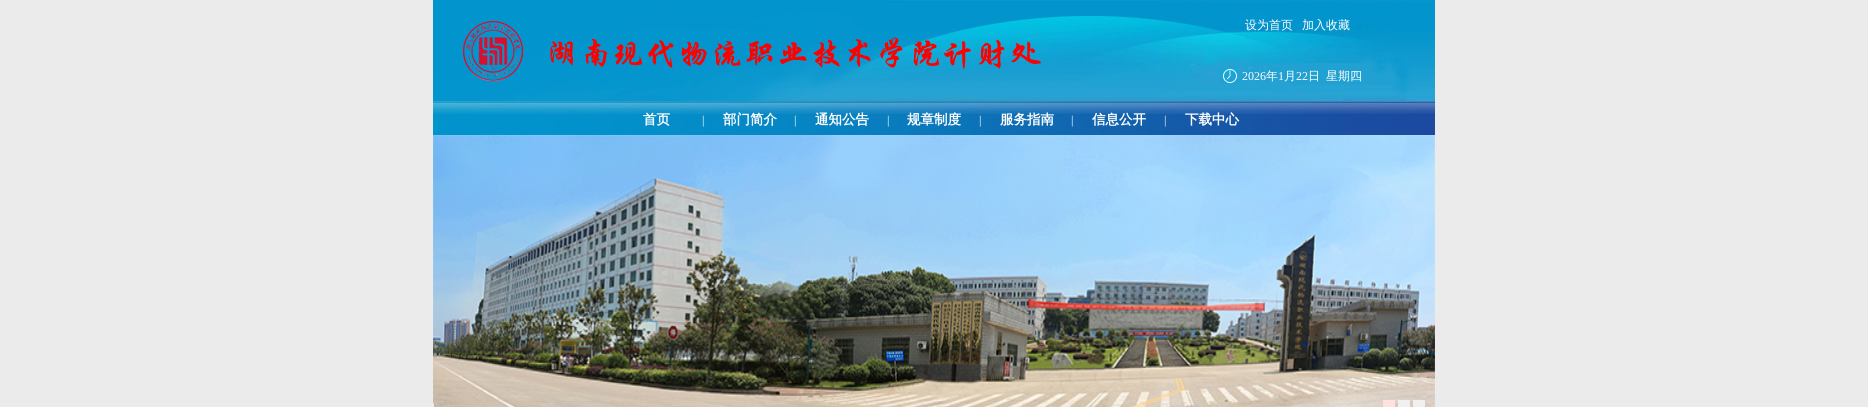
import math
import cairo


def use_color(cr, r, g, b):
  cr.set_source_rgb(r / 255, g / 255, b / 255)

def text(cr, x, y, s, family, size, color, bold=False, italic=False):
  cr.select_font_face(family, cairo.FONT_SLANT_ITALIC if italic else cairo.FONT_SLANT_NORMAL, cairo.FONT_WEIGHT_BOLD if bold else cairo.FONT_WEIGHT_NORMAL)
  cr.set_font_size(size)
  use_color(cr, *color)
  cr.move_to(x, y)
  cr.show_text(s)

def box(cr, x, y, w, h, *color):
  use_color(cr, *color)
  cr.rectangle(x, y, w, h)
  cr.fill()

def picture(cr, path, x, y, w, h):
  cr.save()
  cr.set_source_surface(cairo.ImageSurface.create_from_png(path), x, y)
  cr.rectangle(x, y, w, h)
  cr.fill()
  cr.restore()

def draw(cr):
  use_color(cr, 235, 235, 235)
  cr.paint()
  picture(cr, "img_01.png", 433, 0, 727, 101)
  picture(cr, "img_02.png", 463, 21, 578, 60)
  picture(cr, "img_03.png", 1160, 0, 275, 50)
  picture(cr, "img_04.png", 1160, 50, 275, 51)
  picture(cr, "img_05.png", 1220, 68, 18, 16)
  picture(cr, "img_06.png", 433, 101, 1002, 34)
  picture(cr, "img_07.png", 433, 135, 1002, 272)
  box(cr, 1383, 400, 12, 7, 255, 225, 225)
  box(cr, 1398, 400, 12, 7, 240, 240, 240)
  box(cr, 1413, 400, 12, 7, 240, 240, 240)
  text(cr, 1245, 29, "设为首页", "WenQuanYi Zen Hei Medium", 12, (255, 255, 255))
  text(cr, 1302, 29, "加入收藏", "WenQuanYi Zen Hei Medium", 12, (255, 255, 255))
  text(cr, 1242, 80, "2026", "Liberation Serif", 12, (255, 255, 255))
  text(cr, 1266, 80, "年", "WenQuanYi Zen Hei Medium", 12, (255, 255, 255))
  text(cr, 1278, 80, "1", "Liberation Serif", 12, (255, 255, 255))
  text(cr, 1284, 80, "月", "WenQuanYi Zen Hei Medium", 12, (255, 255, 255))
  text(cr, 1296, 80, "22", "Liberation Serif", 12, (255, 255, 255))
  text(cr, 1308, 80, "日", "WenQuanYi Zen Hei Medium", 12, (255, 255, 255))
  text(cr, 1326, 80, "星期四", "WenQuanYi Zen Hei Medium", 12, (255, 255, 255))
  text(cr, 643, 124, "首页", "WenQuanYi Zen Hei", 13.5, (255, 255, 255), bold=True)
  text(cr, 702, 124, "|", "Liberation Serif", 12, (255, 255, 255))
  text(cr, 723, 124, "部门简介", "WenQuanYi Zen Hei", 13.5, (255, 255, 255), bold=True)
  text(cr, 794, 124, "|", "Liberation Serif", 12, (255, 255, 255))
  text(cr, 815, 124, "通知公告", "WenQuanYi Zen Hei", 13.5, (255, 255, 255), bold=True)
  text(cr, 887, 124, "|", "Liberation Serif", 12, (255, 255, 255))
  text(cr, 907, 124, "规章制度", "WenQuanYi Zen Hei", 13.5, (255, 255, 255), bold=True)
  text(cr, 979, 124, "|", "Liberation Serif", 12, (255, 255, 255))
  text(cr, 1000, 124, "服务指南", "WenQuanYi Zen Hei", 13.5, (255, 255, 255), bold=True)
  text(cr, 1071, 124, "|", "Liberation Serif", 12, (255, 255, 255))
  text(cr, 1092, 124, "信息公开", "WenQuanYi Zen Hei", 13.5, (255, 255, 255), bold=True)
  text(cr, 1164, 124, "|", "Liberation Serif", 12, (255, 255, 255))
  text(cr, 1185, 124, "下载中心", "WenQuanYi Zen Hei", 13.5, (255, 255, 255), bold=True)


surface = cairo.ImageSurface(cairo.FORMAT_RGB24, 1868, 407)
cr = cairo.Context(surface)
options = cairo.FontOptions()
options.set_hint_metrics(cairo.HINT_METRICS_OFF)
options.set_hint_style(cairo.HINT_STYLE_NONE)
cr.set_font_options(options)
cr.set_miter_limit(4)
draw(cr)
surface.write_to_png("out.png")
